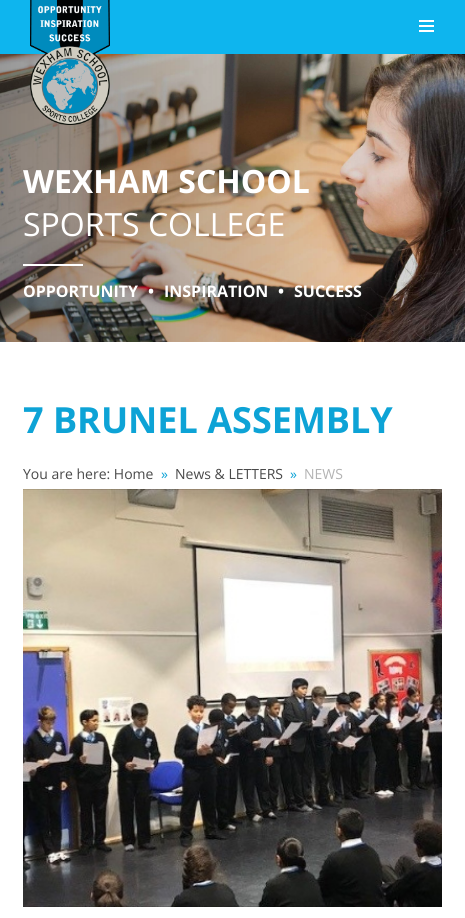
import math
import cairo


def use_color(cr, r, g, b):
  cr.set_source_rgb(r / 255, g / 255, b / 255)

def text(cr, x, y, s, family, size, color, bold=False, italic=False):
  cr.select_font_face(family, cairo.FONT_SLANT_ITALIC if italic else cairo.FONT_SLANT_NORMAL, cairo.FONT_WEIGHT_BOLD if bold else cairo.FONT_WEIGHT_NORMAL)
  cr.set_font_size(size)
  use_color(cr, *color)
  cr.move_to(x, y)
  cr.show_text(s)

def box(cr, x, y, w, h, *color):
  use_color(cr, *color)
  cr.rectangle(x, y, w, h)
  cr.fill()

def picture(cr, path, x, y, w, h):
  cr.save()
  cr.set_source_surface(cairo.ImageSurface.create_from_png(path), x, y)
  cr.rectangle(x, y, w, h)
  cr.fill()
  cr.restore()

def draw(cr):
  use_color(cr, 255, 255, 255)
  cr.paint()
  box(cr, 0, 0, 465, 54, 14, 181, 238)
  box(cr, 419, 25, 15, 2, 255, 255, 255)
  box(cr, 419, 20, 15, 2, 255, 255, 255)
  box(cr, 419, 30, 15, 2, 255, 255, 255)
  picture(cr, "img_02.png", 0, 54, 465, 288)
  picture(cr, "img_01.png", 30, 0, 80, 125)
  box(cr, 23, 264, 60, 2, 255, 255, 255)
  picture(cr, "img_03.png", 23, 489, 419, 418)
  text(cr, 23, 193, "WEXHAM SCHOOL", "Open Sans", 32, (255, 255, 255), bold=True)
  text(cr, 23, 236, "SPORTS COLLEGE", "Open Sans", 32, (255, 255, 255))
  text(cr, 23, 297, "OPPORTUNITY", "Open Sans", 16, (255, 255, 255), bold=True)
  text(cr, 148, 297, "•", "Open Sans", 16, (255, 255, 255), bold=True)
  text(cr, 164, 297, "INSPIRATION", "Open Sans", 16, (255, 255, 255), bold=True)
  text(cr, 278, 297, "•", "Open Sans", 16, (255, 255, 255), bold=True)
  text(cr, 294, 297, "SUCCESS", "Open Sans", 16, (255, 255, 255), bold=True)
  text(cr, 23, 433, "7 BRUNEL ASSEMBLY", "Open Sans", 36, (13, 163, 214), bold=True)
  text(cr, 23, 479, "You are here: Home", "Open Sans", 14, (73, 73, 73))
  text(cr, 161, 479, "»", "Open Sans", 14, (13, 163, 214))
  text(cr, 175, 479, "News & LETTERS", "Open Sans", 14, (73, 73, 73))
  text(cr, 290, 479, "»", "Open Sans", 14, (13, 163, 214))
  text(cr, 304, 479, "NEWS", "Open Sans", 14, (179, 179, 179))


surface = cairo.ImageSurface(cairo.FORMAT_RGB24, 465, 918)
cr = cairo.Context(surface)
options = cairo.FontOptions()
options.set_hint_metrics(cairo.HINT_METRICS_OFF)
options.set_hint_style(cairo.HINT_STYLE_NONE)
cr.set_font_options(options)
cr.set_miter_limit(4)
draw(cr)
surface.write_to_png("out.png")
